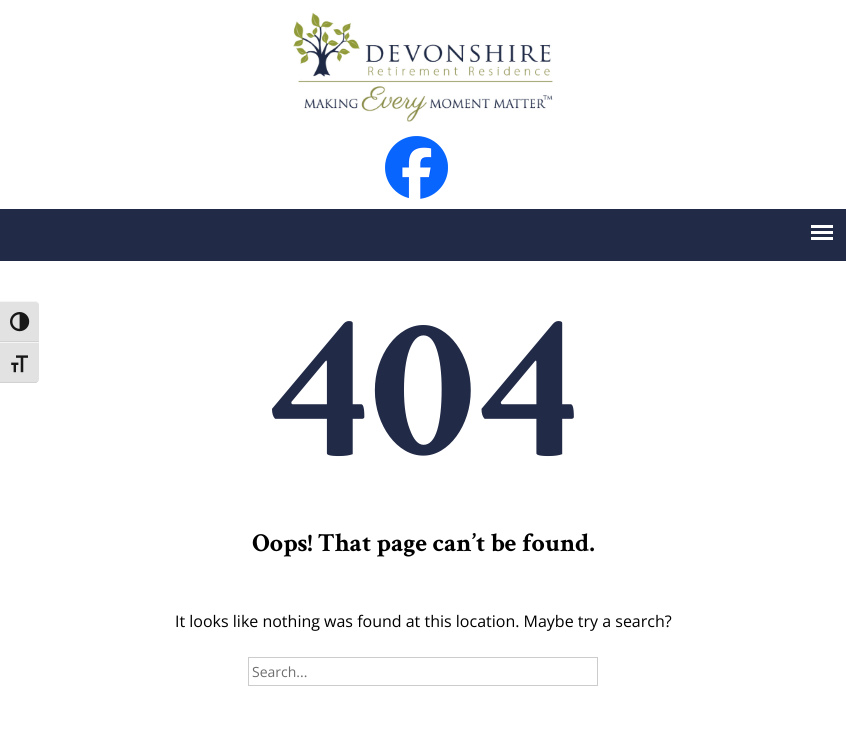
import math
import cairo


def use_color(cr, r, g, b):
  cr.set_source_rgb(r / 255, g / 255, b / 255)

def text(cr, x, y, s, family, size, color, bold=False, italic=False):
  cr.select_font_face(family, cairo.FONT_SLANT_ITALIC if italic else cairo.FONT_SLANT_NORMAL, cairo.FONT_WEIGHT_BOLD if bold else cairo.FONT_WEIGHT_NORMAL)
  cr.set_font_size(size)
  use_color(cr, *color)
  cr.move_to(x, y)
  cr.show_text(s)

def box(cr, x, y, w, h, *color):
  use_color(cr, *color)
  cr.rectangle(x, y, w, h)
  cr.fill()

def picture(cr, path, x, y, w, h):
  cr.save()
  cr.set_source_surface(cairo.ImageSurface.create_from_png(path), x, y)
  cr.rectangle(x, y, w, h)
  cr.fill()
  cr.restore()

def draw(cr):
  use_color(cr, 255, 255, 255)
  cr.paint()
  use_color(cr, 226, 226, 226)
  cr.new_path()
  cr.move_to(0, 301)
  cr.line_to(35, 301)
  cr.curve_to(37, 301, 39, 303, 39, 305)
  cr.line_to(39, 342)
  cr.line_to(0, 342)
  cr.close_path()
  cr.fill()
  use_color(cr, 245, 245, 245)
  cr.new_path()
  cr.move_to(0, 301)
  cr.line_to(0, 302)
  cr.line_to(35, 302)
  cr.curve_to(37, 302, 39, 303, 39, 305)
  cr.curve_to(39, 303, 37, 301, 35, 301)
  cr.close_path()
  cr.fill()
  box(cr, 0, 341, 39, 1, 210, 210, 210)
  picture(cr, "img_01.png", 10, 312, 20, 20)
  use_color(cr, 226, 226, 226)
  cr.new_path()
  cr.move_to(0, 342)
  cr.line_to(39, 342)
  cr.line_to(39, 379)
  cr.curve_to(39, 381, 37, 383, 35, 383)
  cr.line_to(0, 383)
  cr.close_path()
  cr.fill()
  box(cr, 0, 342, 39, 1, 245, 245, 245)
  use_color(cr, 210, 210, 210)
  cr.new_path()
  cr.move_to(0, 382)
  cr.line_to(0, 383)
  cr.line_to(35, 383)
  cr.curve_to(37, 383, 39, 381, 39, 379)
  cr.curve_to(39, 381, 37, 382, 35, 382)
  cr.close_path()
  cr.fill()
  picture(cr, "img_02.png", 11, 355, 17, 18)
  picture(cr, "img_03.png", 293, 12, 260, 110)
  picture(cr, "img_04.png", 385, 136, 63, 63)
  box(cr, 0, 209, 846, 52, 33, 42, 71)
  box(cr, 811, 225, 22, 3, 255, 255, 255)
  box(cr, 811, 231, 22, 3, 255, 255, 255)
  box(cr, 811, 237, 22, 3, 255, 255, 255)
  cr.rectangle(248.5, 657.5, 349, 28)
  use_color(cr, 204, 204, 204)
  cr.set_line_width(1)
  cr.stroke()
  text(cr, 267, 455, "404", "Crimson Text", 213, (33, 42, 71), bold=True)
  text(cr, 252, 551, "Oops! That page can’t be found.", "Crimson Text", 26, (0, 0, 0), bold=True)
  text(cr, 175, 627, "It looks like nothing was found at this location. Maybe try a search?", "Open Sans", 16, (0, 0, 0))
  text(cr, 252, 677, "Search...", "Open Sans", 14, (110, 110, 110))


surface = cairo.ImageSurface(cairo.FORMAT_RGB24, 846, 752)
cr = cairo.Context(surface)
options = cairo.FontOptions()
options.set_hint_metrics(cairo.HINT_METRICS_OFF)
options.set_hint_style(cairo.HINT_STYLE_NONE)
cr.set_font_options(options)
cr.set_miter_limit(4)
draw(cr)
surface.write_to_png("out.png")
